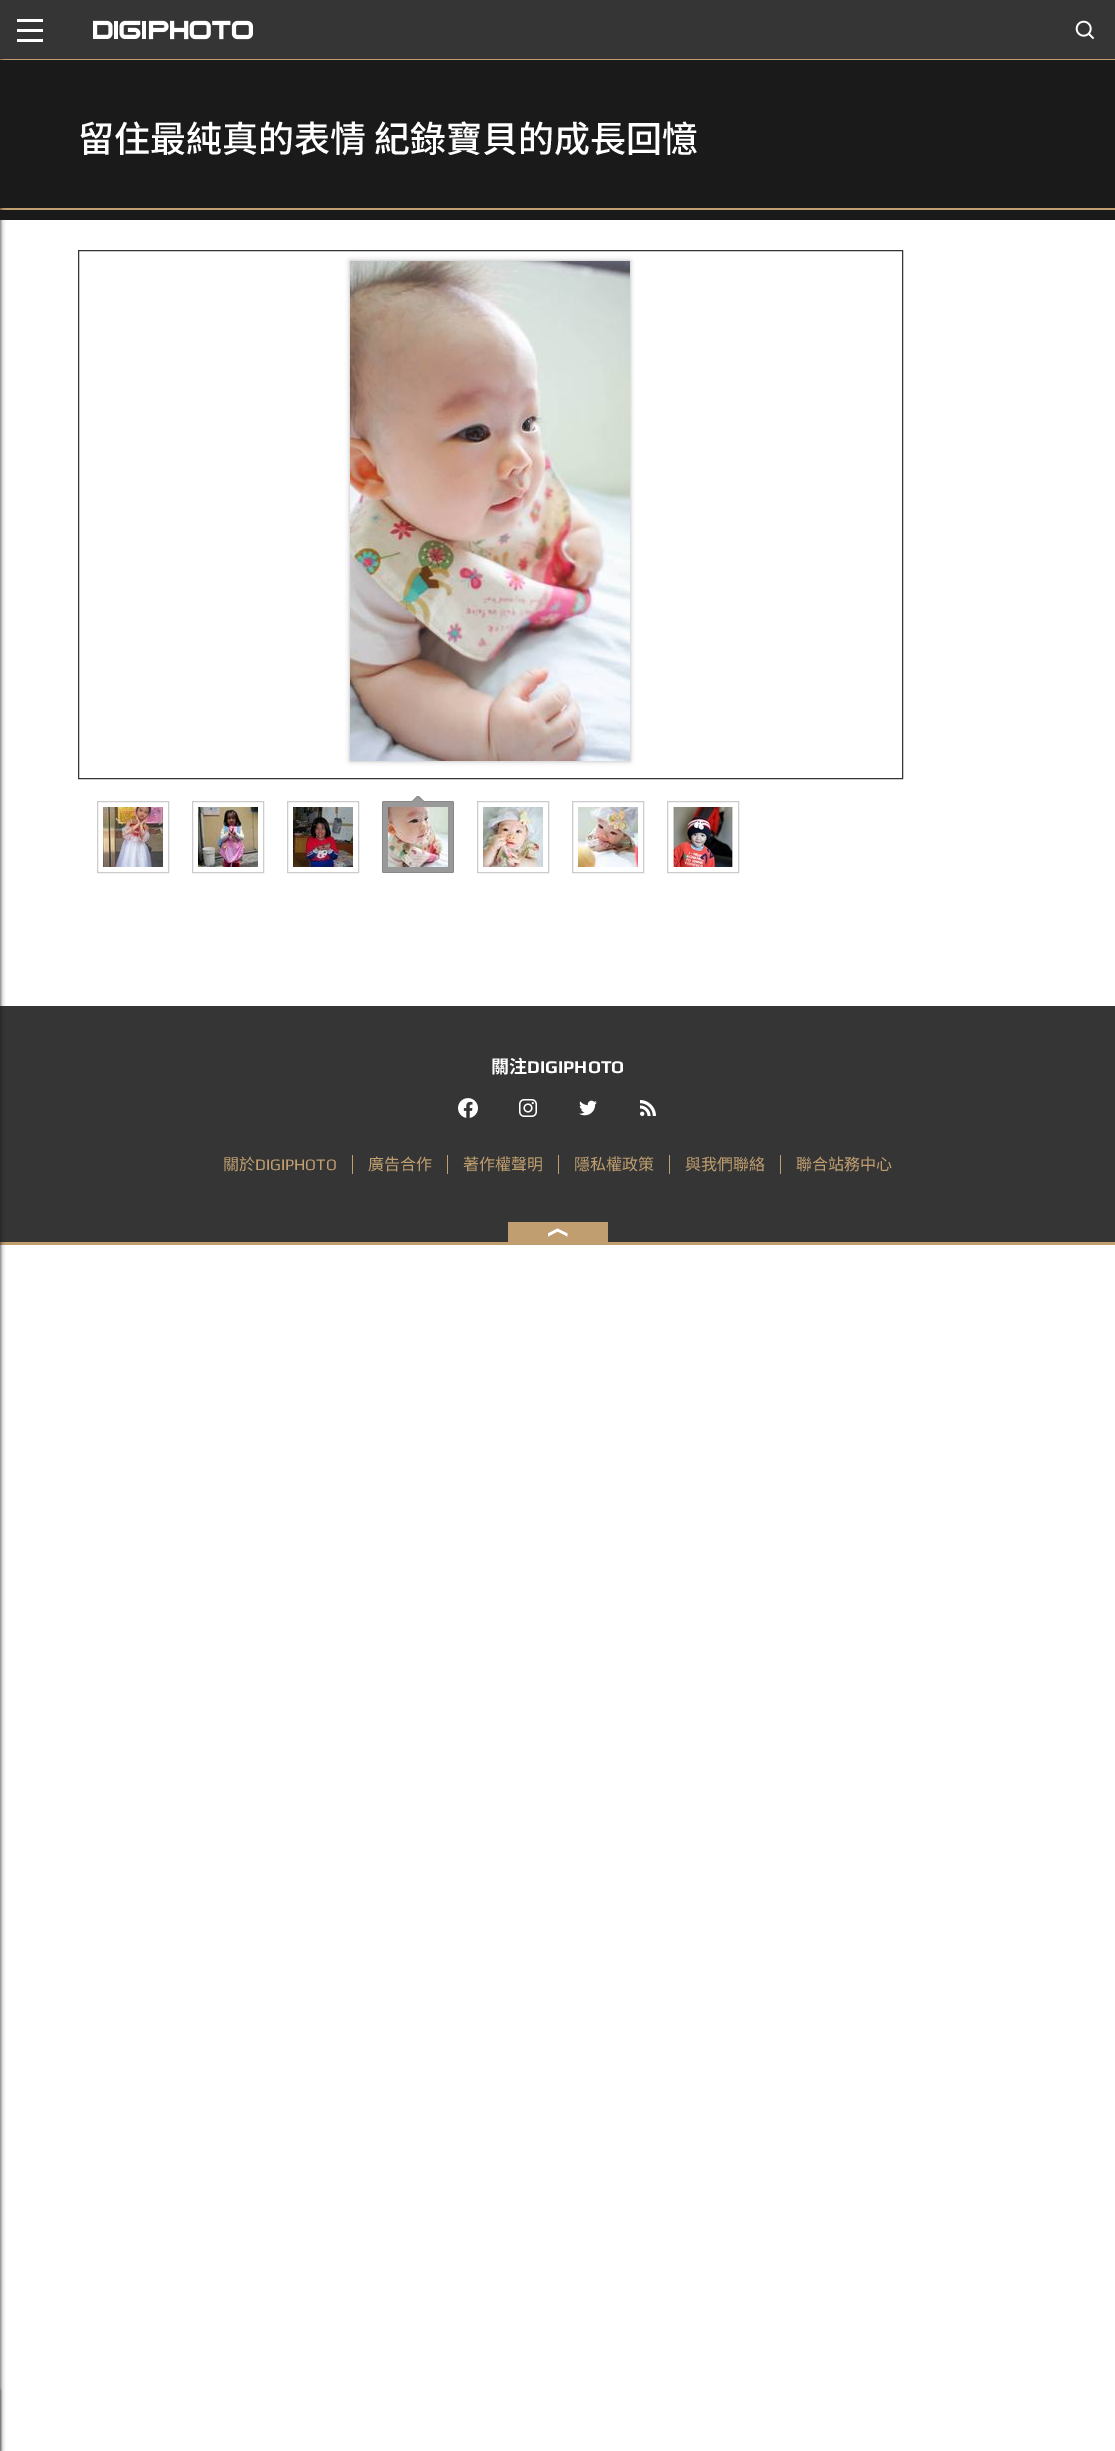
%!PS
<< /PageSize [1115 2451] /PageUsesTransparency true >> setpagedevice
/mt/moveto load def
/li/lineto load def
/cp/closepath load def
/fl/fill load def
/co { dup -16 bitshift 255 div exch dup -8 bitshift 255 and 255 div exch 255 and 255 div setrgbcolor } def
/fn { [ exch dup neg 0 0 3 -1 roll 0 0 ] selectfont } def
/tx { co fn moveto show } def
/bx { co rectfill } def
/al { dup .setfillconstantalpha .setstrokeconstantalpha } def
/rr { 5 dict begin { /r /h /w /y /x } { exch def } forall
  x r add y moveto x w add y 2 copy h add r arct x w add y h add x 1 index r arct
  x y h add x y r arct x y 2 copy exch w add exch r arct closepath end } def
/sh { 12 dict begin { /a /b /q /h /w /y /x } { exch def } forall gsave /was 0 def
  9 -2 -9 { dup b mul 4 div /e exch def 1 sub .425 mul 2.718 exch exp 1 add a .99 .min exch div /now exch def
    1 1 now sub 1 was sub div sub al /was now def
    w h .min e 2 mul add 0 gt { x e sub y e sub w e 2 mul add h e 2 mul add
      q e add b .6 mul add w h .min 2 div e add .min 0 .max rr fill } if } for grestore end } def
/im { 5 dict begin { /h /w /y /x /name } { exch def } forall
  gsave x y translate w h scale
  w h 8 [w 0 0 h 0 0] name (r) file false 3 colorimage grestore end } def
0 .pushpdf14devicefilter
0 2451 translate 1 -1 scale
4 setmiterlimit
0 0 1115 2451 16#FFFFFF bx
0 0 1115 59 16#353535 bx
0 59 1115 1 16#C09E70 bx
17 19 26 3 16#FFFFFF bx
17 29 26 3 16#FFFFFF bx
17 39 26 3 16#FFFFFF bx
(media/1.raw) 93 20 160 20 im
(media/2.raw) 1075 20 20 20 im
0 60 1115 160 16#1A1A1A bx
0 208 1115 2 16#C09E70 bx
0 1006 1115 236 16#353535 bx
0 1242 1115 3 16#C09E70 bx
16#1A1A1A co
-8 60 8 2391 0 2.5 1 sh
16#000000 co
-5 2390 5 61 0 1.5 .45 sh
16#353535 co
78.5 250.5 824 528 rectstroke
16#000000 co
350 261 280 500 0 2.5 .3 sh
(media/3.raw) 350 261 280 500 im
16#CCCCCC co
97.5 801.5 71 71 rectstroke
(media/4.raw) 103 807 60 60 im
192.5 801.5 71 71 rectstroke
(media/5.raw) 198 807 60 60 im
287.5 801.5 71 71 rectstroke
(media/6.raw) 293 807 60 60 im
(media/7.raw) 382 796 72 77 im
(media/8.raw) 388 807 60 60 im
477.5 801.5 71 71 rectstroke
(media/9.raw) 483 807 60 60 im
572.5 801.5 71 71 rectstroke
(media/10.raw) 578 807 60 60 im
667.5 801.5 71 71 rectstroke
(media/11.raw) 673 807 60 60 im
(media/12.raw) 458 1098 20 20 im
(media/13.raw) 519 1099 18 18 im
(media/14.raw) 579 1100 18 16 im
(media/15.raw) 640 1100 16 16 im
352 1155 1 19 16#C09E70 bx
447 1155 1 19 16#C09E70 bx
558 1155 1 19 16#C09E70 bx
669 1155 1 19 16#C09E70 bx
780 1155 1 19 16#C09E70 bx
508 1222 100 20 16#C09E70 bx
16#FFFFFF co
548 1236.5 mt 548 1233.5 li 557.5 1228.5 li 567.5 1233.5 li 567.5 1236.5 li 557.5 1231.5 li cp fl
(留住最純真的表情 紀錄寶貝的成長回憶) 78 152 /NotoSansTC-Medium 36 16#FFFFFF tx
(關注) 491 1073 /NotoSansTC-Bold 18 16#FFFFFF tx
(DIGIPHOTO) 527 1073 /Play-Bold 18 16#FFFFFF tx
(關於) 223 1170 /NotoSansTC-Regular 16 16#C09E70 tx
(DIGIPHOTO) 255 1170 /Play-Regular 16 16#C09E70 tx
(廣告合作) 368 1170 /NotoSansTC-Regular 16 16#C09E70 tx
(著作權聲明) 463 1170 /NotoSansTC-Regular 16 16#C09E70 tx
(隱私權政策) 574 1170 /NotoSansTC-Regular 16 16#C09E70 tx
(與我們聯絡) 685 1170 /NotoSansTC-Regular 16 16#C09E70 tx
(聯合站務中心) 796 1170 /NotoSansTC-Regular 16 16#C09E70 tx
.poppdf14devicefilter showpage
